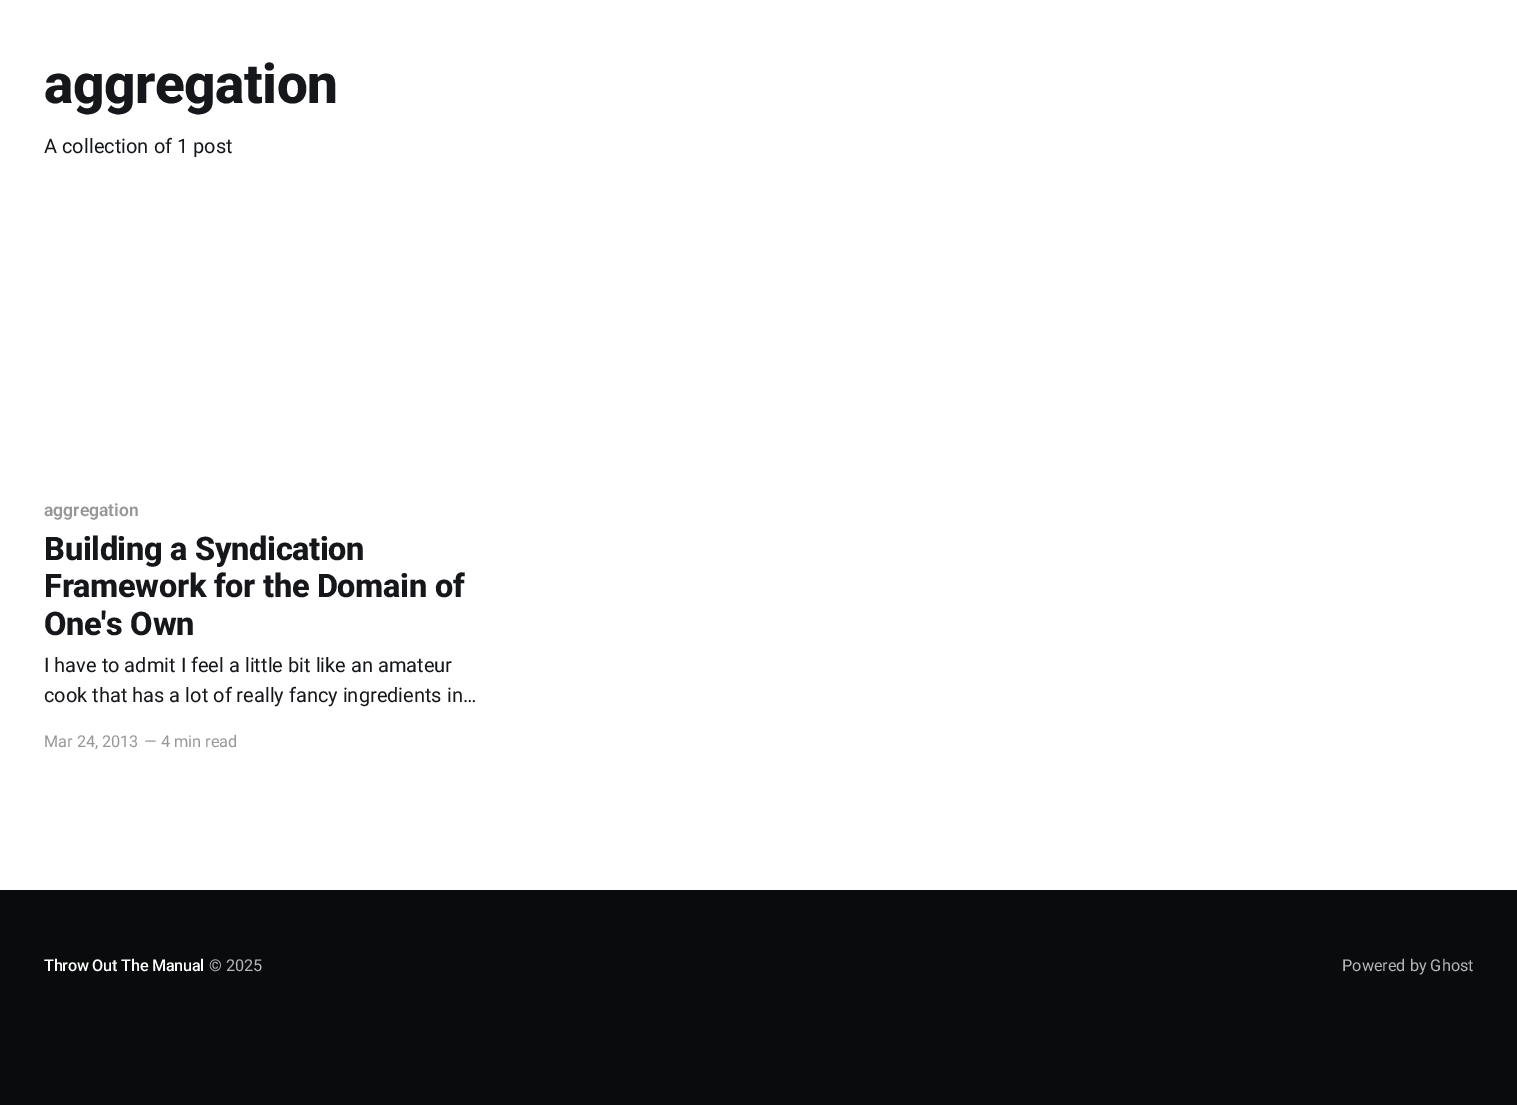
%!PS
<< /PageSize [1517 1105] >> setpagedevice
/mt/moveto load def
/co { dup -16 bitshift 255 div exch dup -8 bitshift 255 and 255 div exch 255 and 255 div setrgbcolor } def
/fn { [ exch dup neg 0 0 3 -1 roll 0 0 ] selectfont } def
/tx { co fn moveto show } def
/bx { co rectfill } def
0 1105 translate 1 -1 scale
4 setmiterlimit
0 0 1517 1105 16#FFFFFF bx
0 890 1517 215 16#0A0B0C bx
/Roboto-ExtraBold 55 fn
16#15171A co
44 103 mt -.5 0 (aggregation) ashow
(A collection of 1 post) 44 153 /Roboto-Regular 20 16#15171A tx
(aggregation) 44 516 /Roboto-SemiBold 17.5 16#979797 tx
/Roboto-ExtraBold 32.5 fn
16#15171A co
44 560 mt -.3 0 (Building a Syndication) ashow
44 597 mt -.3 0 (Framework for the Domain of) ashow
44 635 mt -.3 0 (One's Own) ashow
(I have to admit I feel a little bit like an amateur) 44 672 /Roboto-Regular 20 16#15171A tx
(cook that has a lot of really fancy ingredients in…) 44 702 /Roboto-Regular 20 16#15171A tx
(Mar 24, 2013) 44 747 /Roboto-Regular 16.25 16#979797 tx
(—) 144 747 /Roboto-Regular 16.25 16#979797 tx
(4 min read) 161 747 /Roboto-Regular 16.25 16#979797 tx
/Roboto-Medium 16.25 fn
16#FFFFFF co
44 971 mt -.25 0 (Throw Out The Manual) ashow
(© 2025) 209 971 /Roboto-Regular 16.25 16#B6B6B6 tx
(Powered by Ghost) 1342 971 /Roboto-Regular 16.25 16#B6B6B6 tx
showpage
